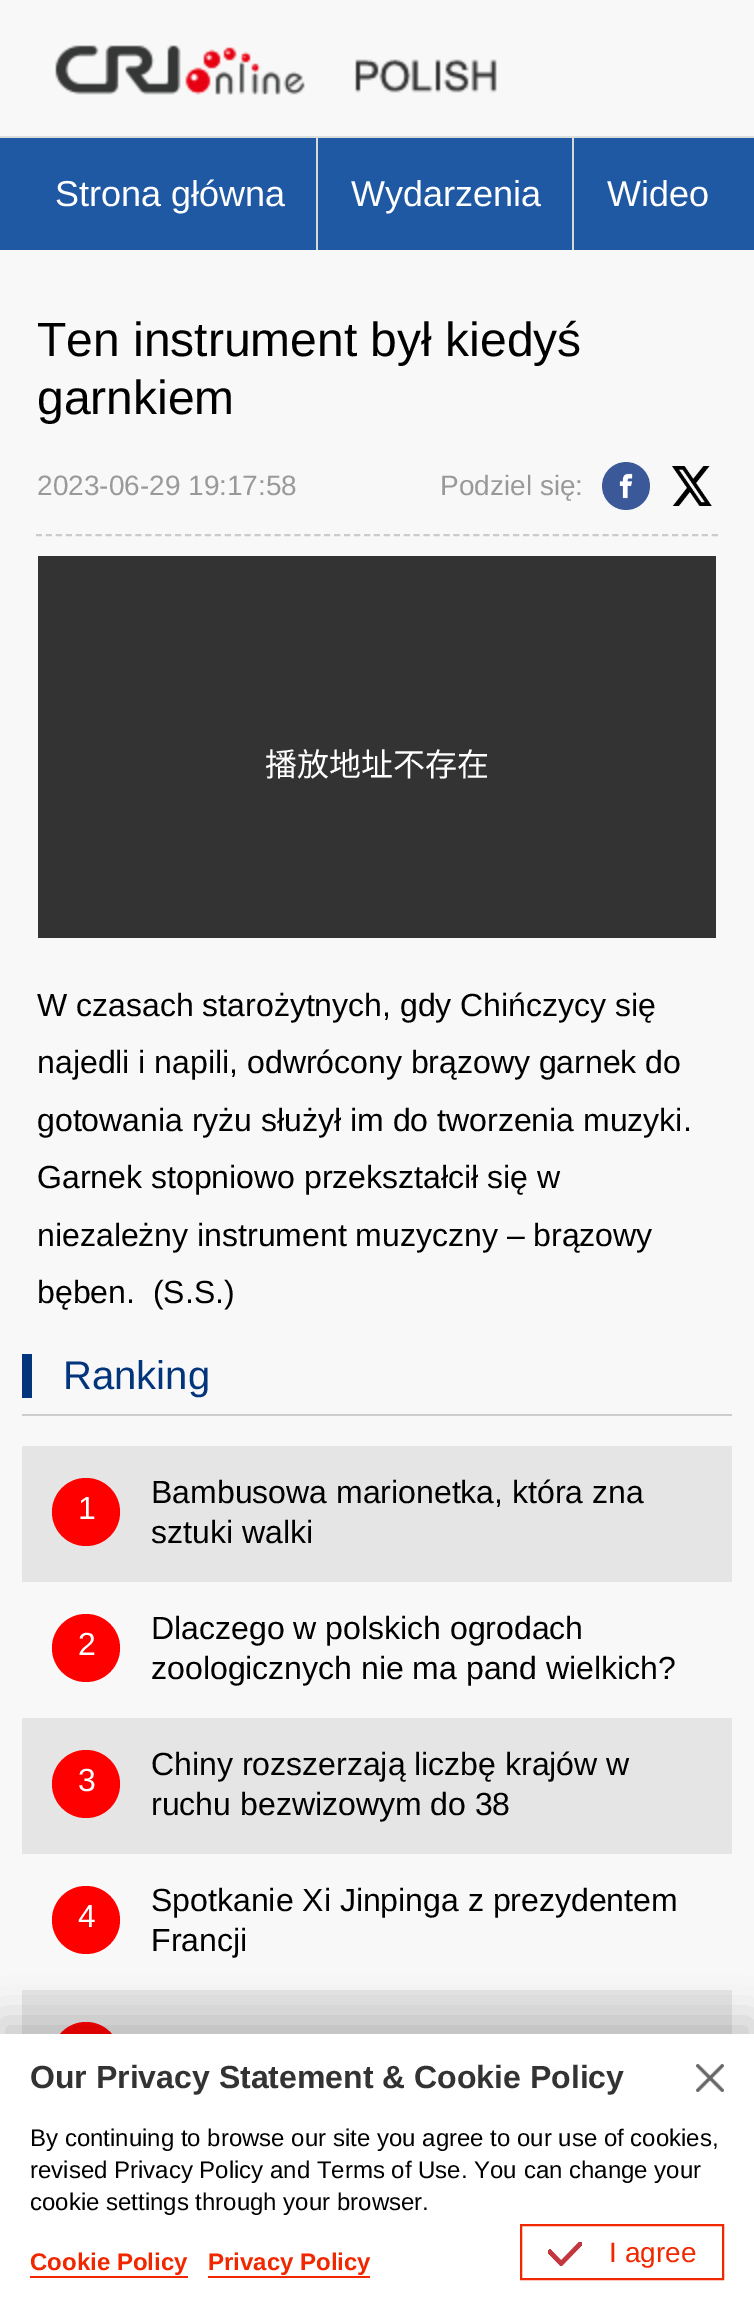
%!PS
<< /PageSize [754 2300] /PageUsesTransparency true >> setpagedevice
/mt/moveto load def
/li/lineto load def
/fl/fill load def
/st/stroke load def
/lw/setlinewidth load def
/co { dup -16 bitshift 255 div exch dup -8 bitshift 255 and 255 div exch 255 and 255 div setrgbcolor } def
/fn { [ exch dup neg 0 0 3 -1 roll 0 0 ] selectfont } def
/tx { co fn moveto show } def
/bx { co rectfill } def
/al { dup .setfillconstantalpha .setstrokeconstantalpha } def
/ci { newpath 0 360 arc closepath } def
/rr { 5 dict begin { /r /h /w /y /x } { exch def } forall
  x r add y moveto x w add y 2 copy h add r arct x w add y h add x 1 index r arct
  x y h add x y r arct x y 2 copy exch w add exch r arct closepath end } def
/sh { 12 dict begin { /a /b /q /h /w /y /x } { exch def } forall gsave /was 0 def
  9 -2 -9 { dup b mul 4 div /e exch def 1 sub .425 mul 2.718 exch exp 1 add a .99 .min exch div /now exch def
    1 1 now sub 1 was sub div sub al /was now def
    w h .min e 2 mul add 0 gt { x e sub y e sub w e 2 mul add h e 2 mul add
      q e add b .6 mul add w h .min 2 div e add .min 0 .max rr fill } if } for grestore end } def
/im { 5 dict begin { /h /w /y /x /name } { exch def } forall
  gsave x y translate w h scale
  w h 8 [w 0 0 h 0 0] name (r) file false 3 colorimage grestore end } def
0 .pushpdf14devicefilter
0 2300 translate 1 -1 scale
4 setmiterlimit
0 0 754 2300 16#F8F8F8 bx
(media/1.raw) 55 45 442 50 im
0 138 754 112 16#2059A3 bx
0 136 754 2 16#DCDDDD bx
316 138 2 112 16#D8D8D8 bx
572 138 2 112 16#D8D8D8 bx
16#CBCBCB co
2 lw
[6 3.94] 0 setdash
36 535 mt 718 535 li st
(media/2.raw) 602 462 48 48 im
(media/3.raw) 672 466 40 40 im
38 556 678 382 16#333333 bx
22 1414 710 2 16#CDCDCD bx
22 1354 10 44 16#03357D bx
22 1446 710 136 16#E5E5E5 bx
16#FF0000 co
86 1512 34 ci fl
86 1648 34 ci fl
22 1718 710 136 16#E5E5E5 bx
16#FF0000 co
86 1784 34 ci fl
86 1920 34 ci fl
22 1990 710 44 16#E5E5E5 bx
16#FF0000 co
86 2056 34 ci fl
16#000000 co
0 2020 754 266 0 20 .19 sh
0 2034 754 266 16#FFFFFF bx
(media/4.raw) 696 2064 28 28 im
30 2276 158 2 16#F12700 bx
208 2276 162 2 16#F12700 bx
[] 0 setdash
521 2225 202 54 rectstroke
(media/5.raw) 548 2242 34 24 im
(Strona główna) 55 206 /LiberationSans-Regular 36 16#FFFFFF tx
(Wydarzenia) 351 206 /LiberationSans-Regular 36 16#FFFFFF tx
(Wideo) 607 206 /LiberationSans-Regular 36 16#FFFFFF tx
(Ten instrument był kiedyś) 37 356 /LiberationSans-Regular 48 16#000000 tx
(garnkiem) 37 414 /LiberationSans-Regular 48 16#000000 tx
(2023-06-29 19:17:58) 37 495 /LiberationSans-Regular 28 16#999999 tx
(Podziel się:) 440 495 /LiberationSans-Regular 28 16#999999 tx
(播放地址不存在) 265 776 /NotoSansCJKSC-Regular 32 16#FFFFFF tx
(W czasach starożytnych, gdy Chińczycy się) 37 1016 /LiberationSans-Regular 32 16#000000 tx
(najedli i napili, odwrócony brązowy garnek do) 37 1073 /LiberationSans-Regular 32 16#000000 tx
(gotowania ryżu służył im do tworzenia muzyki.) 37 1131 /LiberationSans-Regular 32 16#000000 tx
(Garnek stopniowo przekształcił się w) 37 1188 /LiberationSans-Regular 32 16#000000 tx
(niezależny instrument muzyczny – brązowy) 37 1246 /LiberationSans-Regular 32 16#000000 tx
(bęben.  \(S.S.\)) 37 1303 /LiberationSans-Regular 32 16#000000 tx
(Ranking) 63 1389 /LiberationSans-Regular 40 16#03357D tx
(1) 78 1519 /LiberationSans-Regular 32 16#FFFFFF tx
(Bambusowa marionetka, która zna) 151 1503 /LiberationSans-Regular 32 16#000000 tx
(sztuki walki) 151 1543 /LiberationSans-Regular 32 16#000000 tx
(2) 78 1655 /LiberationSans-Regular 32 16#FFFFFF tx
(Dlaczego w polskich ogrodach) 151 1639 /LiberationSans-Regular 32 16#000000 tx
(zoologicznych nie ma pand wielkich?) 151 1679 /LiberationSans-Regular 32 16#000000 tx
(3) 78 1791 /LiberationSans-Regular 32 16#FFFFFF tx
(Chiny rozszerzają liczbę krajów w) 151 1775 /LiberationSans-Regular 32 16#000000 tx
(ruchu bezwizowym do 38) 151 1815 /LiberationSans-Regular 32 16#000000 tx
(4) 78 1927 /LiberationSans-Regular 32 16#FFFFFF tx
(Spotkanie Xi Jinpinga z prezydentem) 151 1911 /LiberationSans-Regular 32 16#000000 tx
(Francji) 151 1951 /LiberationSans-Regular 32 16#000000 tx
(Our Privacy Statement & Cookie Policy) 30 2088 /LiberationSans-Bold 32 16#333333 tx
(By continuing to browse our site you agree to our use of cookies,) 30 2146 /LiberationSans-Regular 24 16#000000 tx
(revised Privacy Policy and Terms of Use. You can change your) 30 2178 /LiberationSans-Regular 24 16#000000 tx
(cookie settings through your browser.) 30 2210 /LiberationSans-Regular 24 16#000000 tx
(Cookie Policy) 30 2270 /LiberationSans-Bold 24 16#F12700 tx
(Privacy Policy) 208 2270 /LiberationSans-Bold 24 16#F12700 tx
(I agree) 609 2262 /LiberationSans-Regular 28 16#F12700 tx
.poppdf14devicefilter showpage
